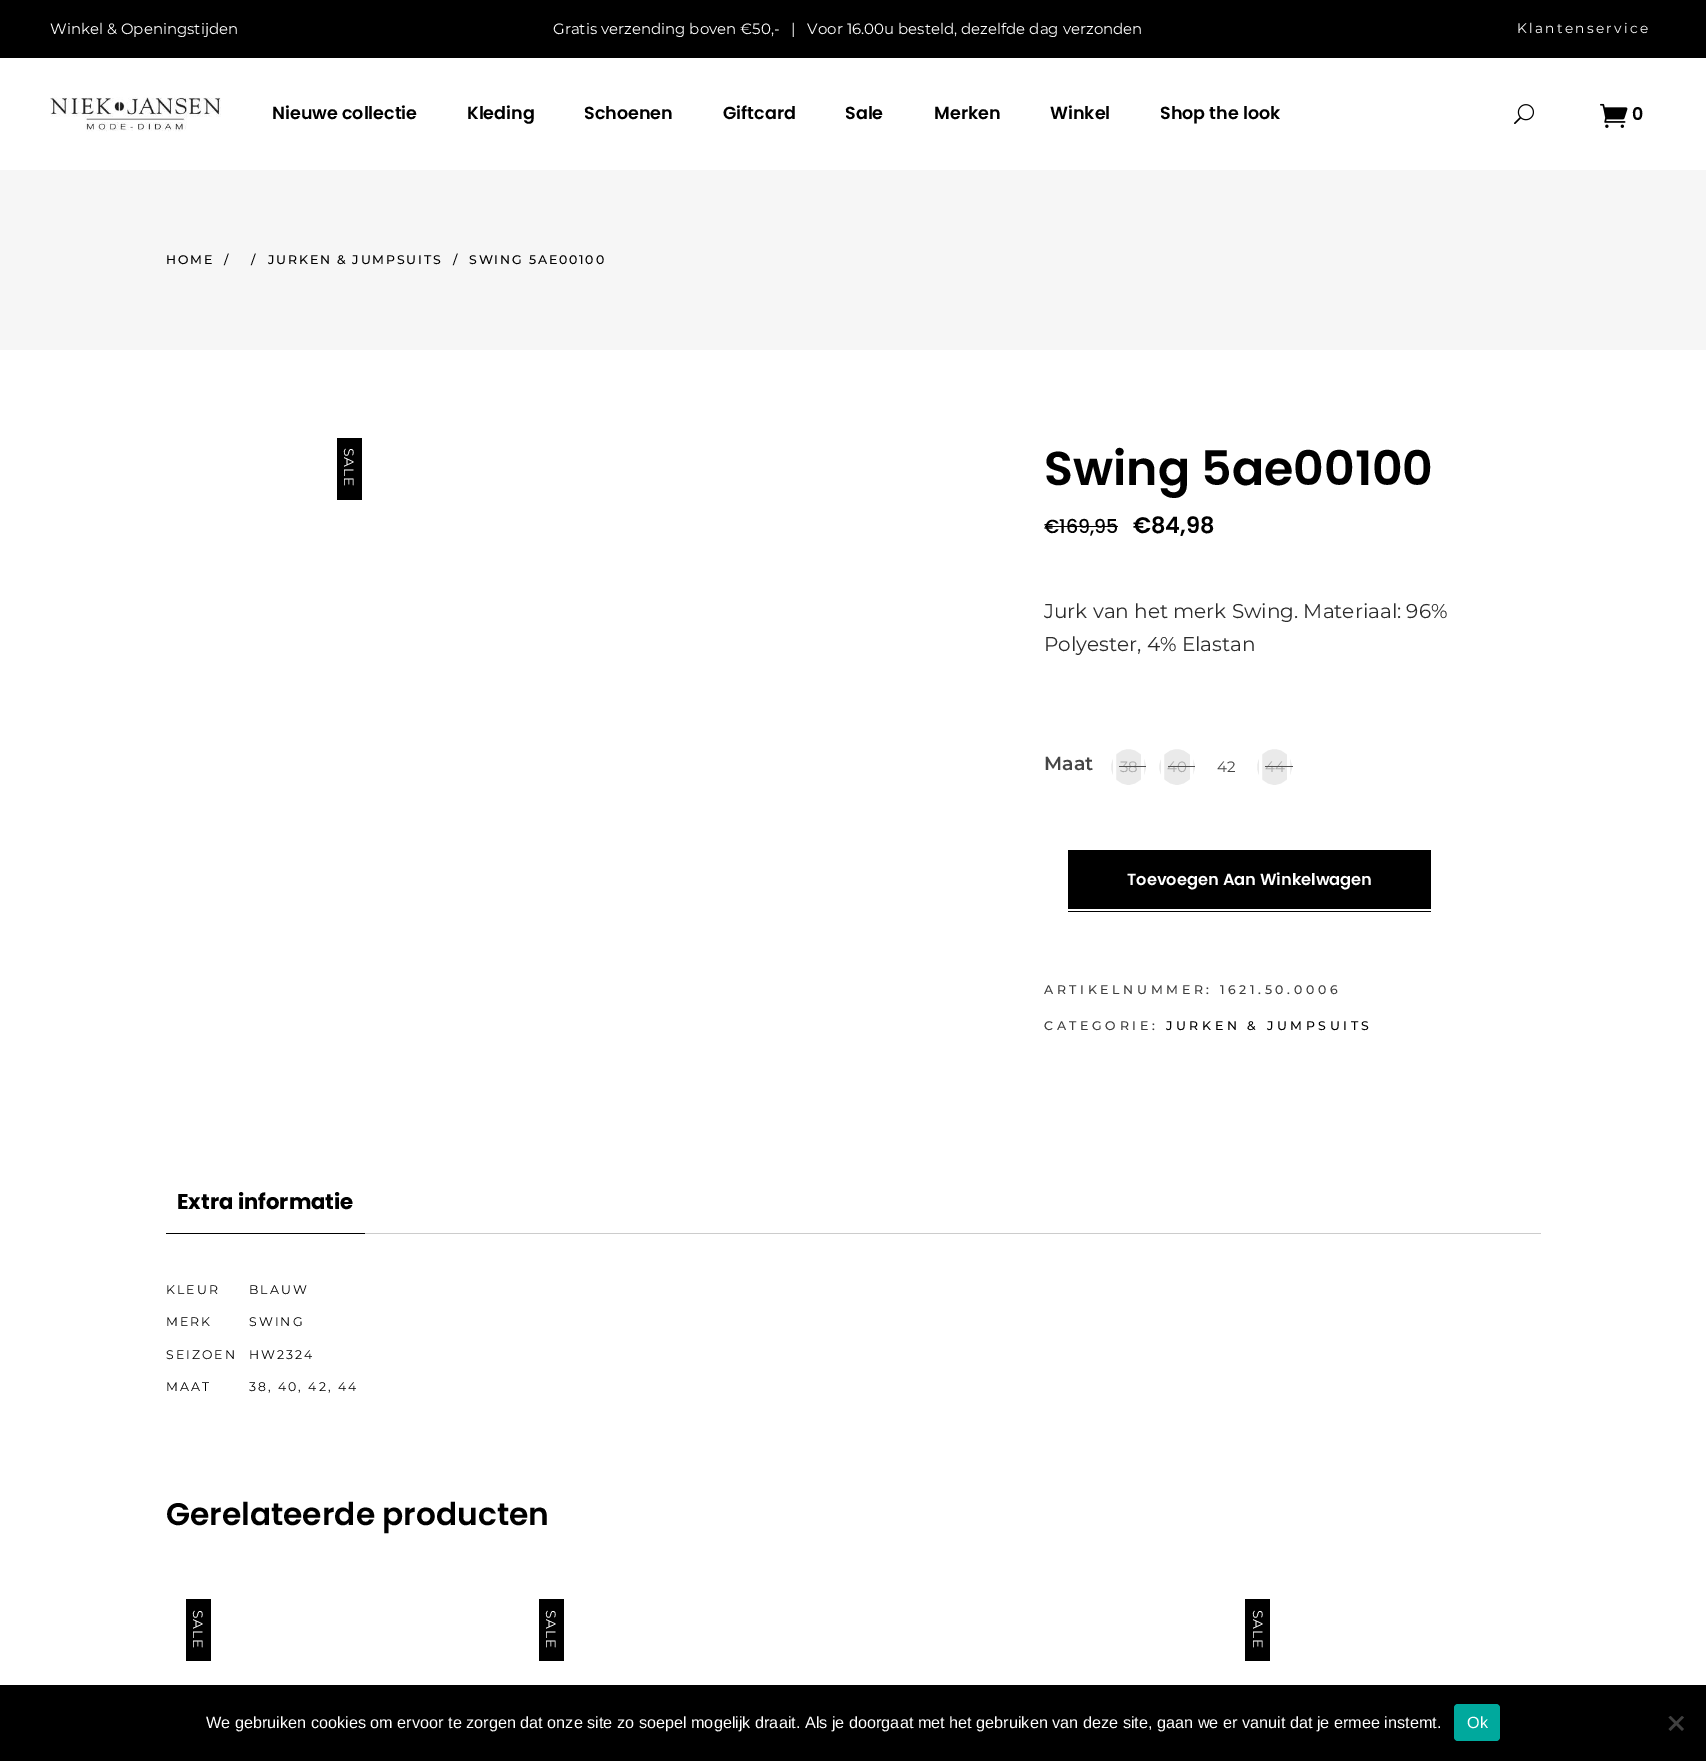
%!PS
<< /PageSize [1706 1761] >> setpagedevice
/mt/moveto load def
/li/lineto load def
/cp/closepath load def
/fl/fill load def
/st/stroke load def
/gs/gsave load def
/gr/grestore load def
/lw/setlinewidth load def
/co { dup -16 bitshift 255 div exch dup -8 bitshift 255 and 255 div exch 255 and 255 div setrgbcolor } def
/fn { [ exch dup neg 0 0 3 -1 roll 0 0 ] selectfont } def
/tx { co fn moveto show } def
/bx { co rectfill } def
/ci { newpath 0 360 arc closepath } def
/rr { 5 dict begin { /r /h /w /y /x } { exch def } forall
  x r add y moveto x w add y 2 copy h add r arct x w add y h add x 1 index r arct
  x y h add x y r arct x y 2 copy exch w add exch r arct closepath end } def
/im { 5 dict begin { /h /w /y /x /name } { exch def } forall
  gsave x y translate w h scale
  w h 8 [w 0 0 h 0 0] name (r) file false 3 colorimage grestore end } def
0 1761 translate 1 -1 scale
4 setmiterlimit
0 0 1706 1761 16#FFFFFF bx
0 0 1706 58 16#000000 bx
(media/1.raw) 50 97 171 35 im
(media/2.raw) 1514 104 20 20 im
(media/3.raw) 1600 103 28 25 im
0 170 1706 180 16#F6F6F6 bx
337 438 25 62 16#000000 bx
1045 526 73 1 16#000000 bx
16#EAEAEA co
1109.5 747.5 38 39 19 rr gs fl gr
16#FFFFFF co
3 lw
st
1114.5 736.5 28 62 14 rr st
16#EAEAEA co
1177 767 19.5 ci gs fl gr
16#FFFFFF co
st
1162.5 736.5 29 62 14.5 rr st
16#EAEAEA co
1255.5 747.5 38 39 19 rr gs fl gr
16#FFFFFF co
st
1260.5 736.5 28 62 14 rr st
1068 850 363 59 16#000000 bx
1068 911 363 1 16#000000 bx
166 1233 199 1 16#000000 bx
365 1233 1176 1 16#CCCCCC bx
186 1599 25 62 16#000000 bx
539 1599 25 62 16#000000 bx
1245 1599 25 62 16#000000 bx
0 1685 1706 76 16#000000 bx
16#00A99D co
1454 1704 46 37 4 rr fl
16#404040 co
1682 1716 mt 1684 1717.5 li 1670.5 1731 li 1668.5 1729 li cp fl
1668.5 1717.5 mt 1670.5 1716 li 1684 1729 li 1682 1731 li cp fl
(Winkel & Openingstijden) 50 34 /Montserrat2-Thin 15 16#FFFFFF tx
(Gratis verzending boven €50,-   |   Voor 16.00u besteld, dezelfde dag verzonden) 553 34 /Montserrat2-Thin 15 16#FFFFFF tx
/Montserrat2-Thin 13.75 fn
1517 33 mt 2.25 0 (Klantenservice) ashow
(Nieuwe collectie) 272 119 /Poppins-SemiBold 17.5 16#000000 tx
(Kleding) 467 119 /Poppins-SemiBold 17.5 16#000000 tx
(Schoenen) 584 119 /Poppins-SemiBold 17.5 16#000000 tx
(Giftcard) 723 119 /Poppins-SemiBold 17.5 16#000000 tx
(Sale) 845 119 /Poppins-SemiBold 17.5 16#000000 tx
(Merken) 934 119 /Poppins-SemiBold 17.5 16#000000 tx
(Winkel) 1050 119 /Poppins-SemiBold 17.5 16#000000 tx
(Shop the look) 1160 119 /Poppins-SemiBold 17.5 16#000000 tx
(0) 1632 120 /Poppins-SemiBold 17.5 16#000000 tx
/Montserrat-Thin 12.5 fn
166 264 mt 1.8 0 (HOME) ashow
224 264 mt 1.8 0 (/) ashow
251 264 mt 1.8 0 (/) ashow
268 264 mt 1.8 0 (JURKEN & JUMPSUITS) ashow
453 264 mt 1.8 0 (/) ashow
469 264 mt 1.8 0 (SWING 5AE00100) ashow
/Montserrat2-Thin 13.75 fn
16#FFFFFF co
gs 344 448 translate 90 rotate 0 0 mt 1 0 (SALE) ashow gr
(Swing 5ae00100) 1044 485 /Poppins-SemiBold 47.5 16#000000 tx
(€169,95) 1044 533 /Poppins-Medium 19 16#000000 tx
(€84,98) 1133 533 /Poppins-SemiBold 22.5 16#000000 tx
(Jurk van het merk Swing. Materiaal: 96%) 1044 618 /Montserrat2-Thin 20 16#2D2D2D tx
(Polyester, 4% Elastan) 1044 651 /Montserrat2-Thin 20 16#2D2D2D tx
(Maat) 1044 770 /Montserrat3-Thin 19 16#464646 tx
(38) 1120 772 /Montserrat2-Thin 15 16#AAAAAA tx
1119 766 27 1 16#505050 bx
(40) 1167 772 /Montserrat2-Thin 15 16#AAAAAA tx
1168 766 27 1 16#505050 bx
(42) 1217 772 /Montserrat2-Thin 15 16#464646 tx
(44) 1265 772 /Montserrat2-Thin 15 16#AAAAAA tx
1265 766 28 1 16#505050 bx
(Toevoegen Aan Winkelwagen) 1127 885 /Poppins-SemiBold 16.25 16#FFFFFF tx
/Montserrat-Thin 12.5 fn
16#3D3D3D co
1044 994 mt 3.6 0 (ARTIKELNUMMER: 1621.50.0006) ashow
1044 1030 mt 3.6 0 (CATEGORIE:) ashow
16#000000 co
1166 1030 mt 3.6 0 (JURKEN & JUMPSUITS) ashow
(Extra informatie) 177 1209 /Poppins-Bold 21.25 16#000000 tx
/Montserrat2-Thin 12.5 fn
166 1294 mt 2 0 (KLEUR) ashow
249 1294 mt 2 0 (BLAUW) ashow
166 1326 mt 2 0 (MERK) ashow
249 1326 mt 2 0 (SWING) ashow
166 1359 mt 2 0 (SEIZOEN) ashow
249 1359 mt 2 0 (HW2324) ashow
166 1391 mt 2 0 (MAAT) ashow
249 1391 mt 2 0 (38, 40, 42, 44) ashow
(Gerelateerde producten) 166 1525 /Poppins-SemiBold 31.25 16#000000 tx
/Montserrat2-Thin 13.75 fn
16#FFFFFF co
gs 193 1610 translate 90 rotate 0 0 mt 1 0 (SALE) ashow gr
gs 546 1610 translate 90 rotate 0 0 mt 1 0 (SALE) ashow gr
gs 1253 1610 translate 90 rotate 0 0 mt 1 0 (SALE) ashow gr
(We gebruiken cookies om ervoor te zorgen dat onze site zo soepel mogelijk draait. Als je doorgaat met het gebruiken van deze site, gaan we er vanuit dat je ermee instemt.) 206 1728 /LiberationSans-Regular 16.25 16#FFFFFF tx
(Ok) 1467 1728 /LiberationSans-Regular 16.25 16#FFFFFF tx
showpage
